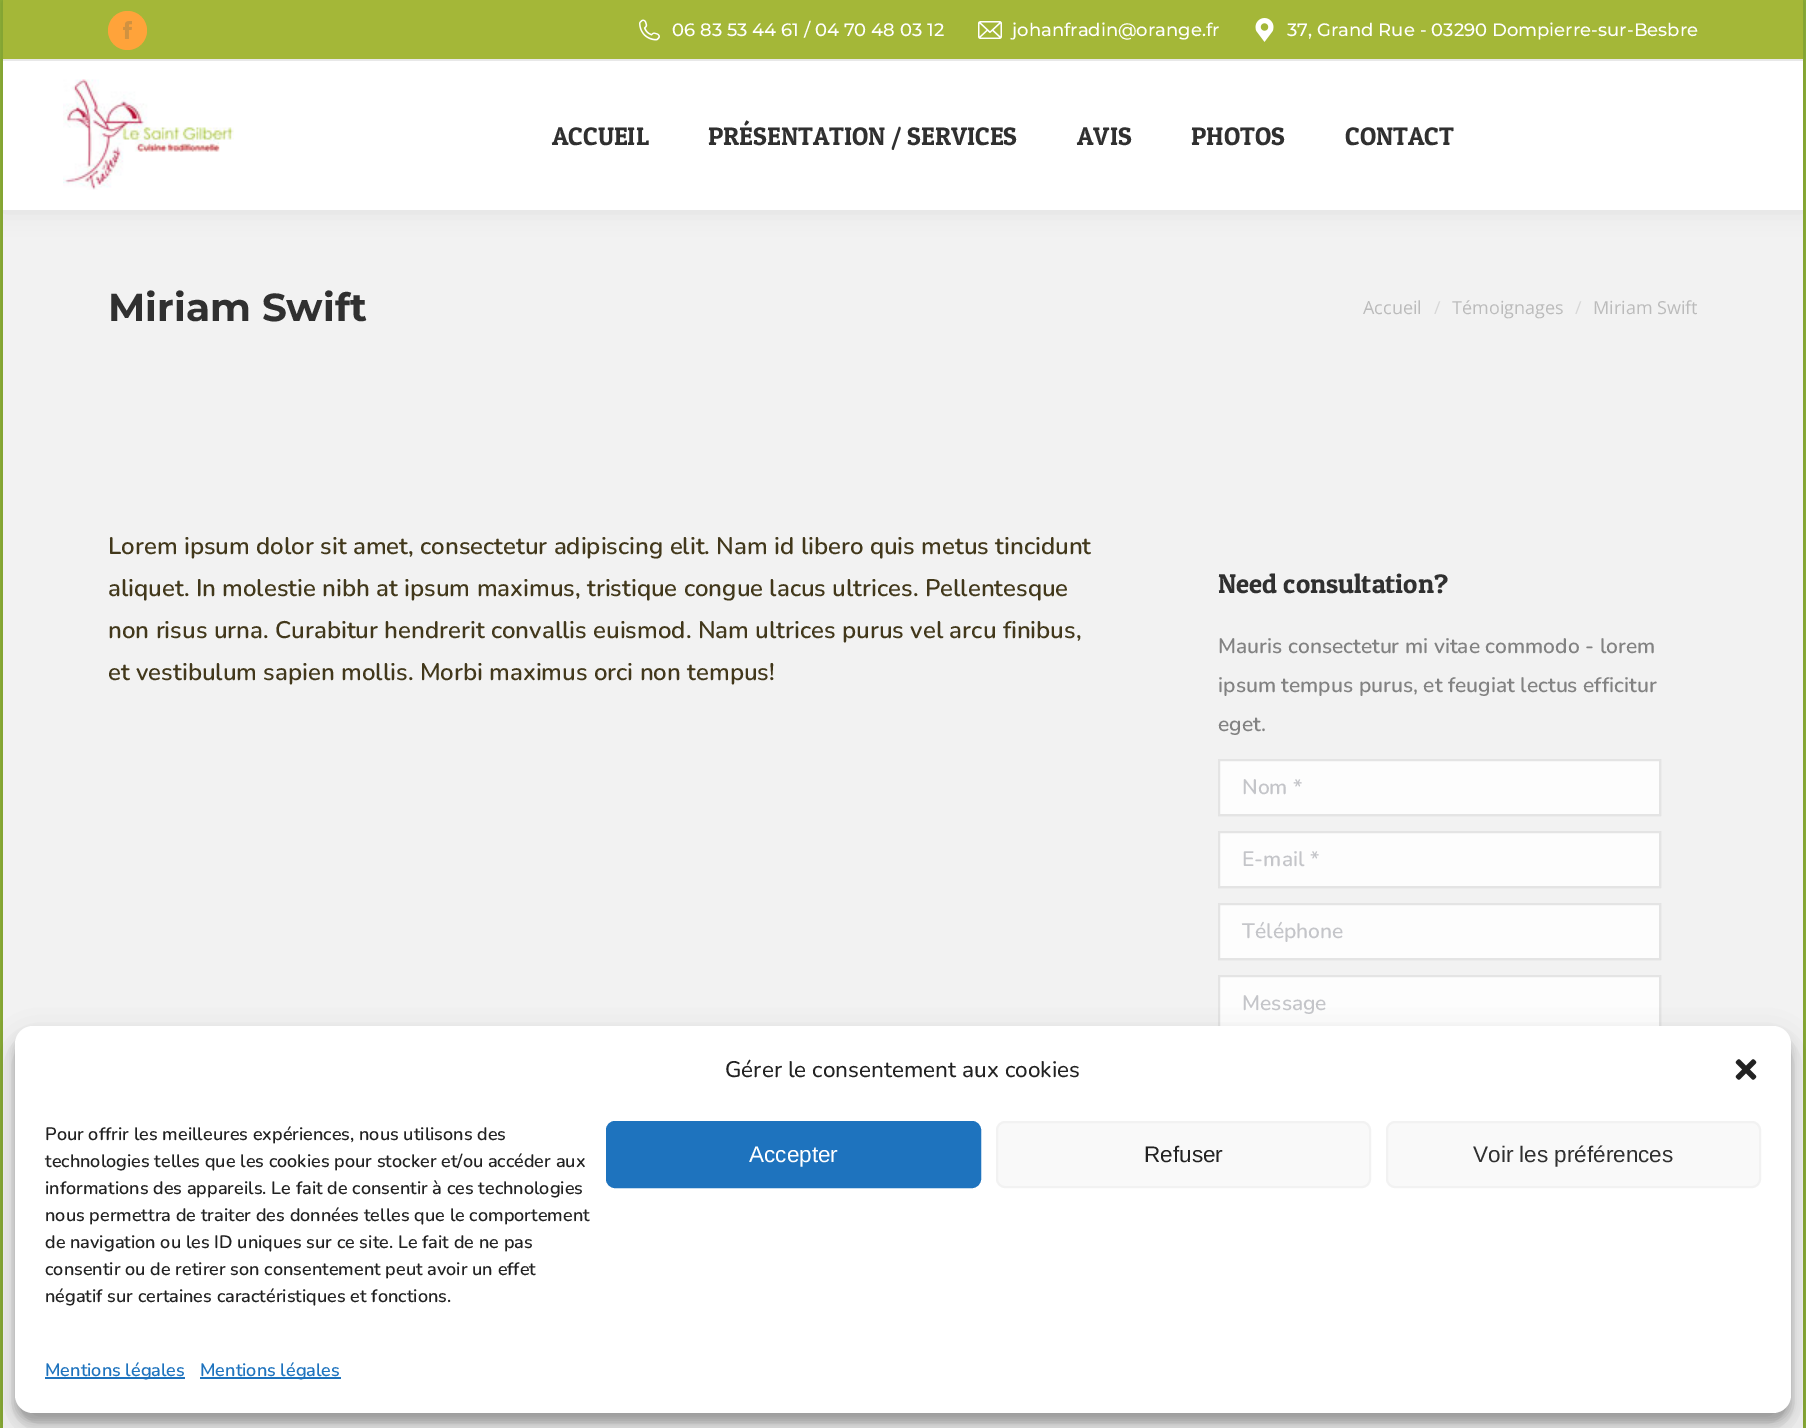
%!PS
<< /PageSize [1806 1428] /PageUsesTransparency true >> setpagedevice
/fl/fill load def
/st/stroke load def
/gs/gsave load def
/gr/grestore load def
/lw/setlinewidth load def
/co { dup -16 bitshift 255 div exch dup -8 bitshift 255 and 255 div exch 255 and 255 div setrgbcolor } def
/fn { [ exch dup neg 0 0 3 -1 roll 0 0 ] selectfont } def
/tx { co fn moveto show } def
/bx { co rectfill } def
/al { dup .setfillconstantalpha .setstrokeconstantalpha } def
/ci { newpath 0 360 arc closepath } def
/rr { 5 dict begin { /r /h /w /y /x } { exch def } forall
  x r add y moveto x w add y 2 copy h add r arct x w add y h add x 1 index r arct
  x y h add x y r arct x y 2 copy exch w add exch r arct closepath end } def
/sh { 12 dict begin { /a /b /q /h /w /y /x } { exch def } forall gsave /was 0 def
  9 -2 -9 { dup b mul 4 div /e exch def 1 sub .425 mul 2.718 exch exp 1 add a .99 .min exch div /now exch def
    1 1 now sub 1 was sub div sub al /was now def
    w h .min e 2 mul add 0 gt { x e sub y e sub w e 2 mul add h e 2 mul add
      q e add b .6 mul add w h .min 2 div e add .min 0 .max rr fill } if } for grestore end } def
/im { 5 dict begin { /h /w /y /x /name } { exch def } forall
  gsave x y translate w h scale
  w h 8 [w 0 0 h 0 0] name (r) file false 3 colorimage grestore end } def
0 .pushpdf14devicefilter
0 1428 translate 1 -1 scale
4 setmiterlimit
0 0 1806 1428 16#8FB237 bx
16#000000 co
3 0 1800 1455 0 9 .15 sh
3 210 1800 1218 16#F2F2F2 bx
gs
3 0 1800 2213 rectclip
16#000000 co
2 -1 1803 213 0 11 .07 sh
gr
3 61 1800 149 16#FFFFFF bx
3 0 1800 59 16#A4B738 bx
16#FFA33A co
127.5 30.5 19.5 ci fl
(media/1.raw) 123 21 9 18 im
(media/2.raw) 639 19 21 22 im
(media/3.raw) 978 21 24 18 im
(media/4.raw) 1255 18 19 24 im
3 59 1800 2 16#E8E8E8 bx
(media/5.raw) 63 79 171 111 im
16#FDFDFD co
1218 759 443 57 1.5 rr fl
0.12 al
16#333333 co
2 lw
1219 760 441 55 rectstroke
1 al
16#FDFDFD co
1218 831 443 57 1.5 rr fl
0.12 al
16#333333 co
1219 832 441 55 rectstroke
1 al
16#FDFDFD co
1218 903 443 57 1.5 rr fl
0.12 al
16#333333 co
1219 904 441 55 rectstroke
1 al
16#FDFDFD co
1218 975 443 252 1.5 rr fl
0.12 al
16#333333 co
1219 976 441 250 rectstroke
1 al
16#000000 co
15 1035 1776 387 18 4.5 .23 sh
15 1041 1776 387 18 15 .19 sh
16#FFFFFF co
15 1026 1776 387 18 rr fl
(media/6.raw) 1735 1059 22 21 im
16#1E73BE co
607 1122 373 65 8 rr gs fl gr
st
16#F9F9F9 co
997 1122 373 65 8 rr gs fl gr
16#F2F2F2 co
st
16#F9F9F9 co
1387 1122 373 65 8 rr gs fl gr
16#F2F2F2 co
st
45 1377 140 2 16#1E73BE bx
200 1377 141 2 16#1E73BE bx
(06 83 53 44 61 / 04 70 48 03 12) 672 36 /Montserrat-Medium 18 16#FFFFFF tx
(johanfradin@orange.fr) 1012 36 /Montserrat-Medium 18 16#FFFFFF tx
(37, Grand Rue - 03290 Dompierre-sur-Besbre) 1287 36 /Montserrat-Medium 18 16#FFFFFF tx
(ACCUEIL) 552 145 /PatuaOne-Regular 25.5 16#303030 tx
(PRÉSENTATION / SERVICES) 708 145 /PatuaOne-Regular 25.5 16#303030 tx
(AVIS) 1077 145 /PatuaOne-Regular 25.5 16#303030 tx
(PHOTOS) 1191 145 /PatuaOne-Regular 25.5 16#303030 tx
(CONTACT) 1345 145 /PatuaOne-Regular 25.5 16#303030 tx
(Miriam Swift) 108 321 /Montserrat-Bold 39 16#303030 tx
(Accueil) 1363 314 /OpenSans-Regular 18 16#BBBBBB tx
(/) 1434 314 /OpenSans-Regular 18 16#D7D7D7 tx
(Témoignages) 1452 314 /OpenSans-Regular 18 16#BBBBBB tx
(/) 1575 314 /OpenSans-Regular 18 16#D7D7D7 tx
(Miriam Swift) 1593 314 /OpenSans-Regular 18 16#BBBBBB tx
(Lorem ipsum dolor sit amet, consectetur adipiscing elit. Nam id libero quis metus tincidunt) 108 554 /Nunito-SemiBold 24 16#42381B tx
(aliquet. In molestie nibh at ipsum maximus, tristique congue lacus ultrices. Pellentesque) 108 596 /Nunito-SemiBold 24 16#42381B tx
(non risus urna. Curabitur hendrerit convallis euismod. Nam ultrices purus vel arcu finibus,) 108 638 /Nunito-SemiBold 24 16#42381B tx
(et vestibulum sapien mollis. Morbi maximus orci non tempus!) 108 680 /Nunito-SemiBold 24 16#42381B tx
(Need consultation?) 1218 593 /PatuaOne-Regular 27 16#303030 tx
(Mauris consectetur mi vitae commodo - lorem) 1218 653 /Nunito-SemiBold 21 16#828282 tx
(ipsum tempus purus, et feugiat lectus efficitur) 1218 692 /Nunito-SemiBold 21 16#828282 tx
(eget.) 1218 731 /Nunito-SemiBold 21 16#828282 tx
(Nom *) 1242 794 /Nunito-SemiBold 21 16#C4C5C9 tx
(E-mail *) 1242 866 /Nunito-SemiBold 21 16#C4C5C9 tx
(Téléphone) 1242 938 /Nunito-SemiBold 21 16#C4C5C9 tx
(Message) 1242 1010 /Nunito-SemiBold 21 16#C4C5C9 tx
(Gérer le consentement aux cookies) 725 1077 /Nunito-Medium 22.5 16#222222 tx
(Pour offrir les meilleures expériences, nous utilisons des) 45 1140 /Nunito-SemiBold 18 16#222222 tx
(technologies telles que les cookies pour stocker et/ou accéder aux) 45 1167 /Nunito-SemiBold 18 16#222222 tx
(informations des appareils. Le fait de consentir à ces technologies) 45 1194 /Nunito-SemiBold 18 16#222222 tx
(nous permettra de traiter des données telles que le comportement) 45 1221 /Nunito-SemiBold 18 16#222222 tx
(de navigation ou les ID uniques sur ce site. Le fait de ne pas) 45 1248 /Nunito-SemiBold 18 16#222222 tx
(consentir ou de retirer son consentement peut avoir un effet) 45 1275 /Nunito-SemiBold 18 16#222222 tx
(négatif sur certaines caractéristiques et fonctions.) 45 1302 /Nunito-SemiBold 18 16#222222 tx
(Accepter) 749 1162 /LiberationSans-Regular 22.5 16#FFFFFF tx
(Refuser) 1144 1162 /LiberationSans-Regular 22.5 16#222222 tx
(Voir les préférences) 1473 1162 /LiberationSans-Regular 22.5 16#303030 tx
(Mentions légales) 45 1376 /Nunito-SemiBold 18 16#1E73BE tx
(Mentions légales) 200 1376 /Nunito-SemiBold 18 16#1E73BE tx
.poppdf14devicefilter showpage
